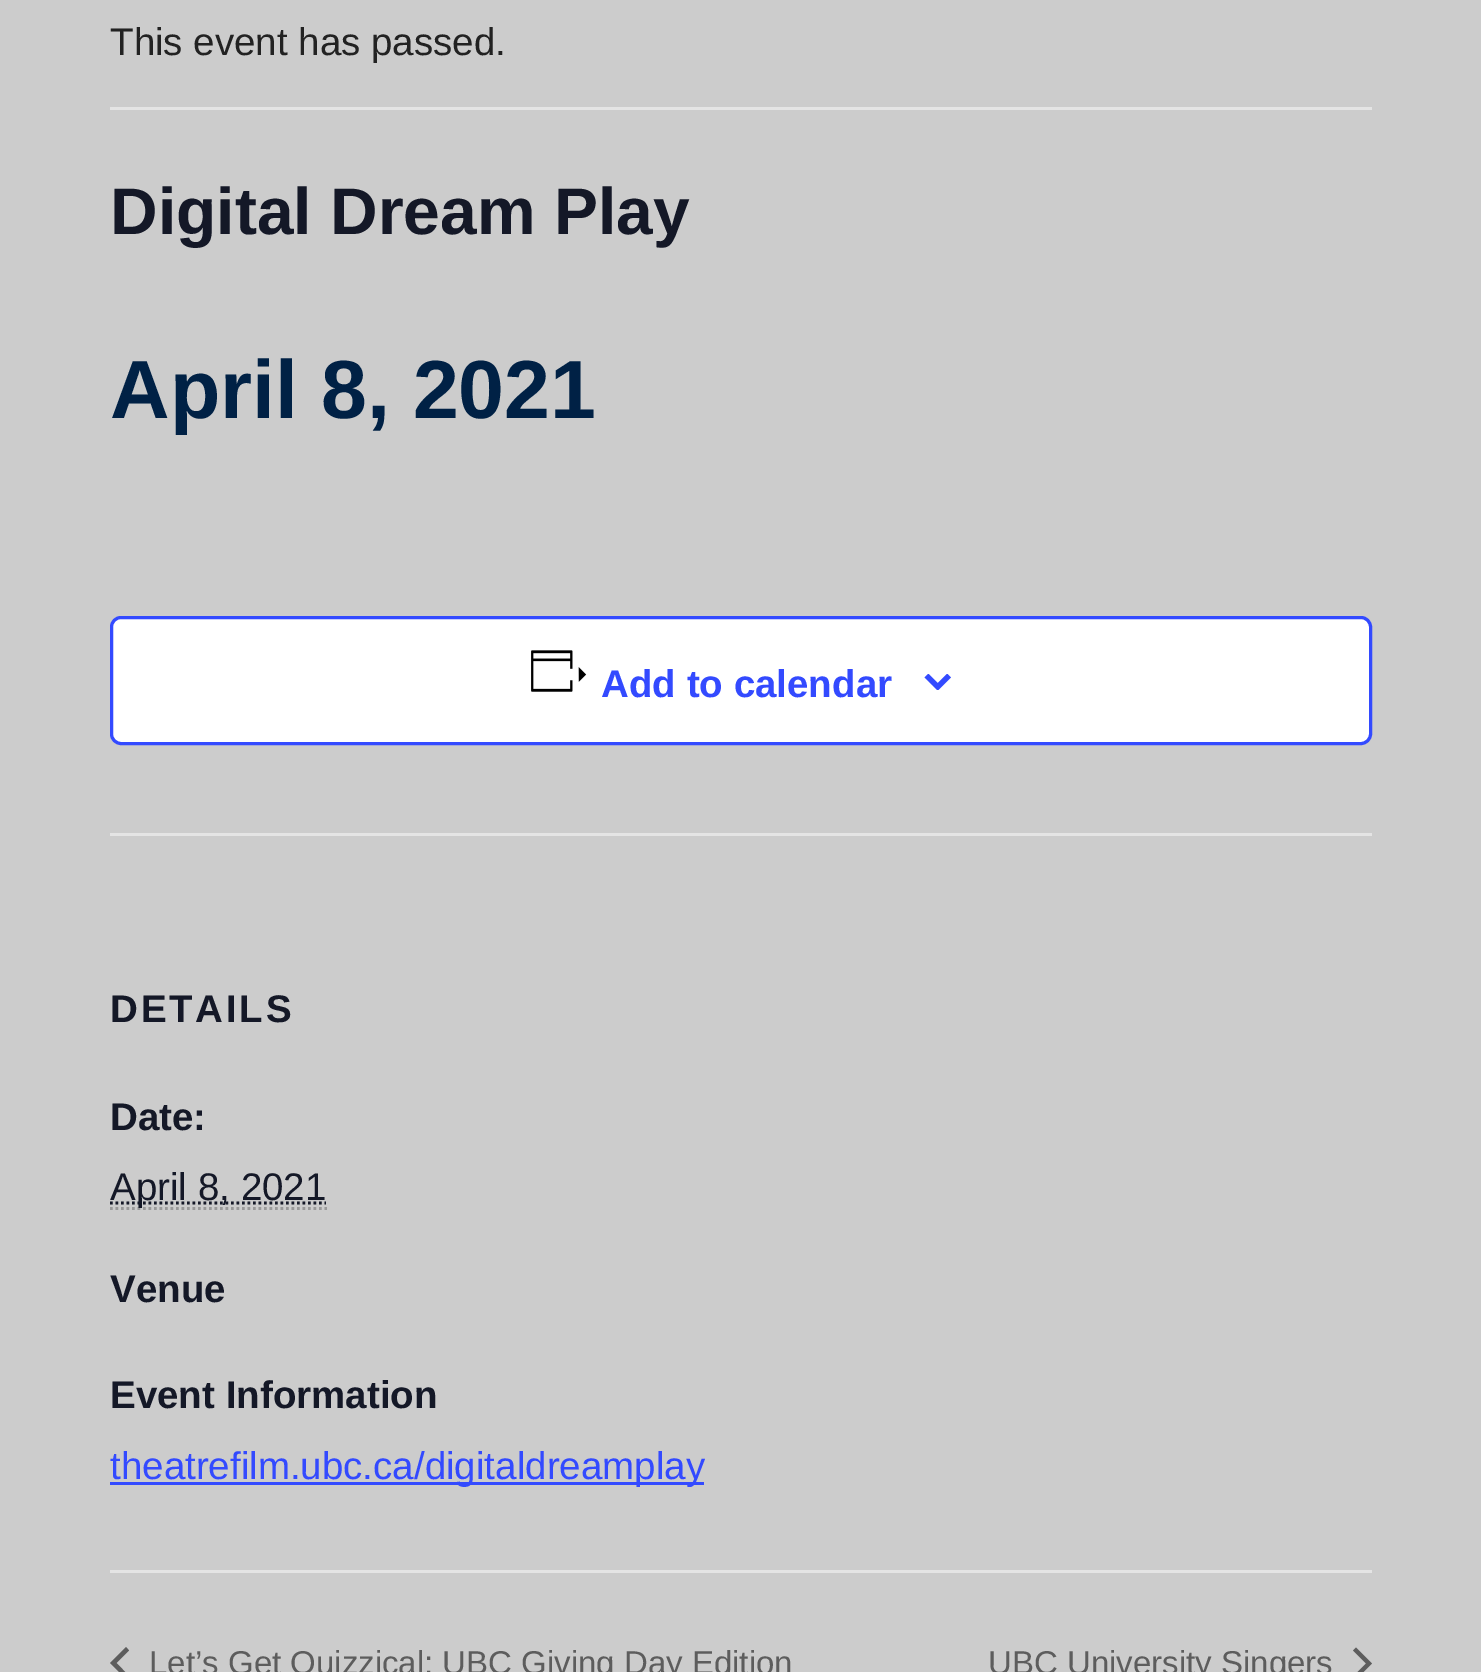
%!PS
<< /PageSize [1481 1672] >> setpagedevice
/mt/moveto load def
/li/lineto load def
/cp/closepath load def
/fl/fill load def
/st/stroke load def
/gs/gsave load def
/gr/grestore load def
/lw/setlinewidth load def
/co { dup -16 bitshift 255 div exch dup -8 bitshift 255 and 255 div exch 255 and 255 div setrgbcolor } def
/fn { [ exch dup neg 0 0 3 -1 roll 0 0 ] selectfont } def
/tx { co fn moveto show } def
/bx { co rectfill } def
/rr { 5 dict begin { /r /h /w /y /x } { exch def } forall
  x r add y moveto x w add y 2 copy h add r arct x w add y h add x 1 index r arct
  x y h add x y r arct x y 2 copy exch w add exch r arct closepath end } def
/im { 5 dict begin { /h /w /y /x /name } { exch def } forall
  gsave x y translate w h scale
  w h 8 [w 0 0 h 0 0] name (r) file false 3 colorimage grestore end } def
0 1672 translate 1 -1 scale
4 setmiterlimit
0 0 1481 1672 16#CCCCCC bx
110 107 1262 3 16#E4E4E4 bx
16#FFFFFF co
111.5 617.5 1259 126 9.5 rr gs fl gr
16#334AFF co
3 lw
st
(media/1.raw) 531 650 56 42 im
(media/2.raw) 924 674 27 16 im
110 833 1262 3 16#E4E4E4 bx
16#999999 co
2.8 lw
[2.75 2.75] 0 setdash
110 1208.5 mt 327 1208.5 li st
16#141827 co
110 1203 mt 326 1203 li st
110 1482 594 3 16#334AFF bx
110 1570 1262 3 16#E4E4E4 bx
16#5D5D5D co
129 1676 mt 126 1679 li 110 1663 li 126 1647 li 129 1650.5 li 116.5 1663 li cp fl
1353 1650.5 mt 1356 1647.5 li 1372 1663.5 li 1356 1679.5 li 1353 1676.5 li 1366 1663.5 li cp fl
(This event has passed.) 110 55 /LiberationSans-Regular 38.5 16#222222 tx
(Digital Dream Play) 110 234 /LiberationSans-Bold 66 16#141827 tx
(April 8, 2021) 110 418 /LiberationSans-Bold 82.5 16#002145 tx
(Add to calendar) 601 697 /LiberationSans-Bold 38.5 16#334AFF tx
16#141827 co
110 1022 mt 2.75 0 (DETAILS) ashow
(Date:) 110 1130 /LiberationSans-Bold 38.5 16#141827 tx
(April 8, 2021) 110 1200 /LiberationSans-Regular 38.5 16#141827 tx
(Venue) 110 1302 /LiberationSans-Bold 38.5 16#141827 tx
(Event Information) 110 1408 /LiberationSans-Bold 38.5 16#141827 tx
(theatrefilm.ubc.ca/digitaldreamplay) 110 1479 /LiberationSans-Regular 38.5 16#334AFF tx
(Let’s Get Quizzical: UBC Giving Day Edition) 149 1674 /LiberationSans-Regular 33 16#5D5D5D tx
(UBC University Singers) 988 1674 /LiberationSans-Regular 33 16#5D5D5D tx
showpage
